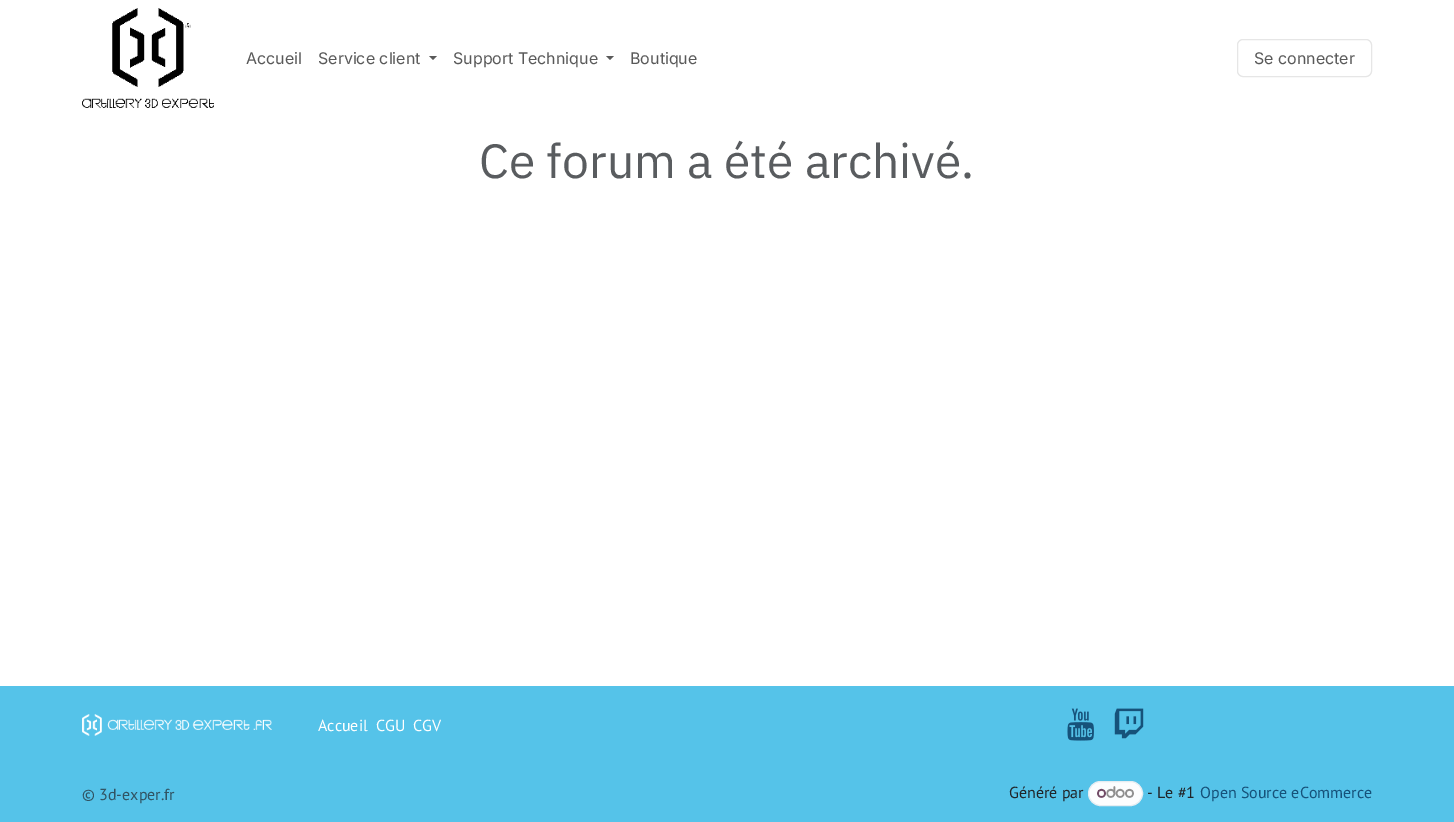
%!PS
<< /PageSize [1454 822] >> setpagedevice
/mt/moveto load def
/li/lineto load def
/cp/closepath load def
/fl/fill load def
/st/stroke load def
/gs/gsave load def
/gr/grestore load def
/co { dup -16 bitshift 255 div exch dup -8 bitshift 255 and 255 div exch 255 and 255 div setrgbcolor } def
/fn { [ exch dup neg 0 0 3 -1 roll 0 0 ] selectfont } def
/tx { co fn moveto show } def
/bx { co rectfill } def
/rr { 5 dict begin { /r /h /w /y /x } { exch def } forall
  x r add y moveto x w add y 2 copy h add r arct x w add y h add x 1 index r arct
  x y h add x y r arct x y 2 copy exch w add exch r arct closepath end } def
/im { 5 dict begin { /h /w /y /x /name } { exch def } forall
  gsave x y translate w h scale
  w h 8 [w 0 0 h 0 0] name (r) file false 3 colorimage grestore end } def
0 822 translate 1 -1 scale
4 setmiterlimit
0 0 1454 822 16#FFFFFF bx
(media/1.raw) 82 8 132 100 im
16#595959 co
429 56 mt 437 56 li 433 60 li cp fl
606 56 mt 614 56 li 610 60 li cp fl
16#E6E6E6 co
1237.5 39.5 134 37 5.5 rr st
0 686 1454 136 16#55C3E9 bx
(media/2.raw) 82 714 190 22 im
(media/3.raw) 1067 708 27 33 im
(media/4.raw) 1114 708 30 31 im
16#FCFDFE co
1088.5 781.5 54 24 12 rr gs fl gr
16#E5EDF2 co
st
(media/5.raw) 1097 786 37 12 im
(Accueil) 246 64 /Inter-Regular 16 16#595959 tx
(Service client) 318 64 /Inter-Regular 16 16#595959 tx
(Support Technique) 453 64 /Inter-Regular 16 16#595959 tx
(Boutique) 630 64 /Inter-Regular 16 16#595959 tx
(Se connecter) 1254 64 /Inter-Regular 16 16#595959 tx
(Ce forum a été archivé.) 479 178 /IBMPlexSans-Regular 48 16#595C5F tx
(Accueil) 318 731 /PTSans-Regular 16 16#FFFFFF tx
(CGU) 376 731 /PTSans-Regular 16 16#FFFFFF tx
(CGV) 413 731 /PTSans-Regular 16 16#FFFFFF tx
(© 3d-exper.fr) 82 800 /PTSans-Regular 16 16#315463 tx
(Généré par) 1009 798 /PTSans-Regular 16 16#212529 tx
(- Le #1) 1147 798 /PTSans-Regular 16 16#212529 tx
(Open Source eCommerce) 1200 798 /PTSans-Regular 16 16#16527A tx
showpage
